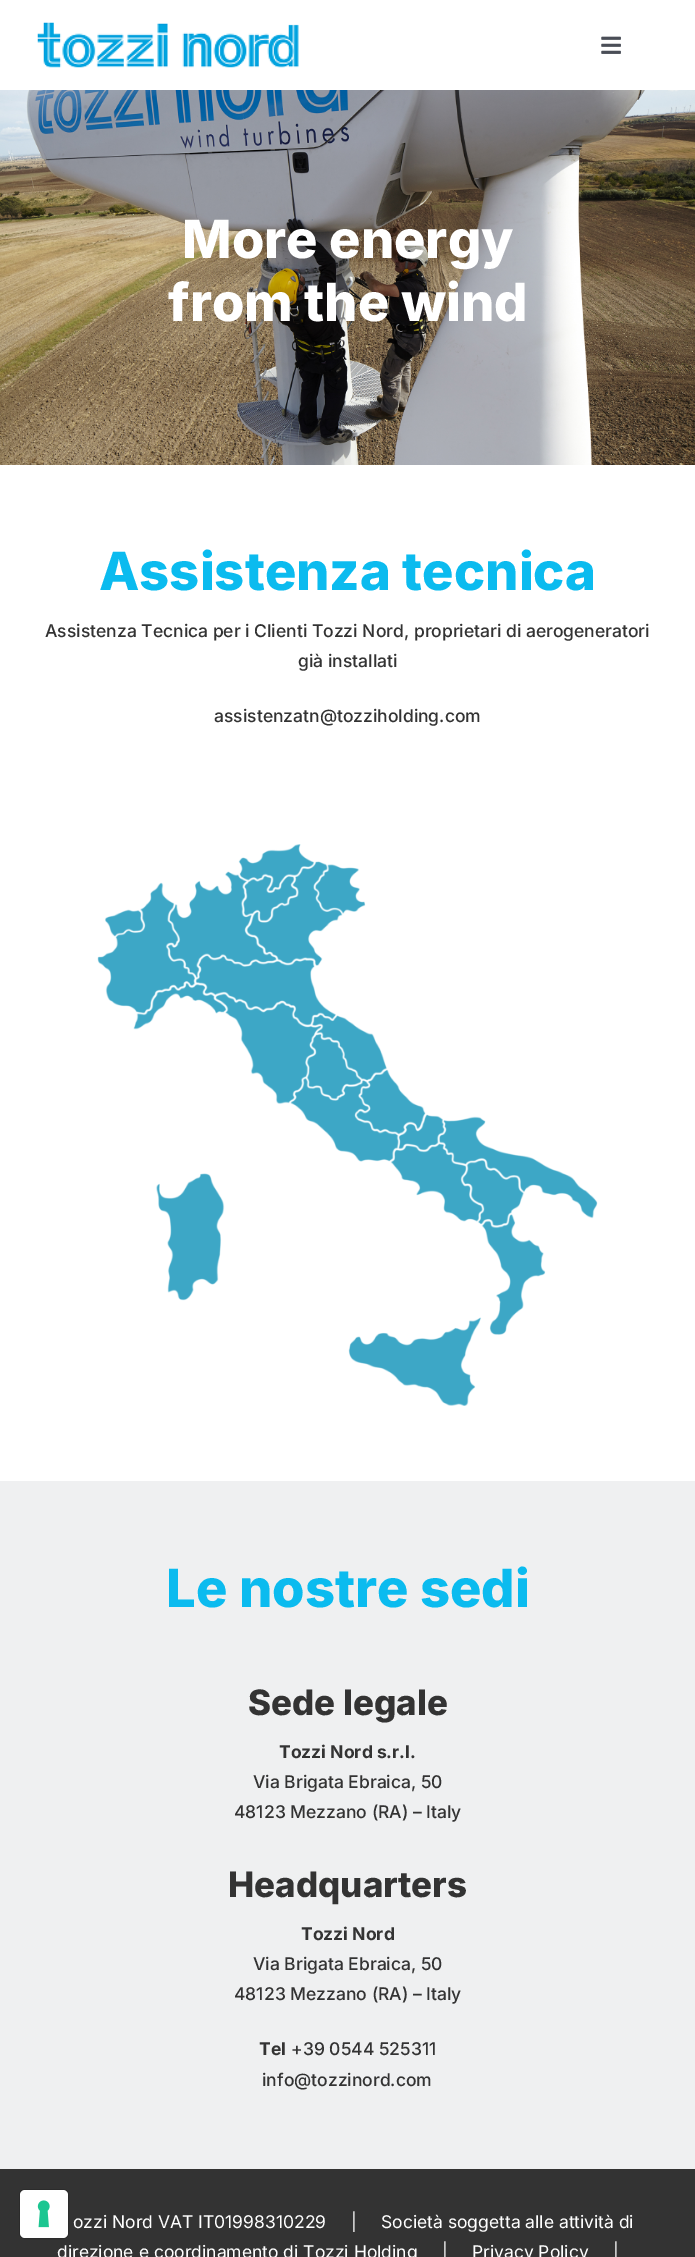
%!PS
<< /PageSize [695 2257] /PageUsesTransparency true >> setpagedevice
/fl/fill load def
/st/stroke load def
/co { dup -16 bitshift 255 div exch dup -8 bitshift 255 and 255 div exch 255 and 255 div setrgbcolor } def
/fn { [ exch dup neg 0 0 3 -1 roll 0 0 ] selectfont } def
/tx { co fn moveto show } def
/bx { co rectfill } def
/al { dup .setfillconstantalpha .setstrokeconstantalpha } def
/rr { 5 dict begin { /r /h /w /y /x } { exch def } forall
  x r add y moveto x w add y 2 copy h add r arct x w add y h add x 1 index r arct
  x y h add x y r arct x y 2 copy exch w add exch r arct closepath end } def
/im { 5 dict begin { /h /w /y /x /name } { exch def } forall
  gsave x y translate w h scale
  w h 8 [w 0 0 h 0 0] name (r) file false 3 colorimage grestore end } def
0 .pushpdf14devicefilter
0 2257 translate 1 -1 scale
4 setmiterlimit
0 0 695 2257 16#FFFFFF bx
0 2169 695 88 16#333333 bx
0.15 al
16#000000 co
19.5 2189.5 49 49 5.5 rr st
1 al
16#FFFFFF co
20 2190 48 48 5 rr fl
(media/1.raw) 37 2200 13 28 im
(media/2.raw) 37 22 262 46 im
(media/3.raw) 601 36 20 18 im
(media/4.raw) 0 90 695 375 im
(media/5.raw) 97 844 501 562 im
0 1481 695 688 16#EFF0F1 bx
(More energy) 182 258 /Inter-ExtraBold 52.5 16#FFFFFF tx
(from the wind) 168 321 /Inter-ExtraBold 52.5 16#FFFFFF tx
(Assistenza tecnica) 99 590 /Inter-ExtraBold 52.5 16#0BBBEF tx
(Assistenza Tecnica per i Clienti Tozzi Nord, proprietari di aerogeneratori) 45 637 /Inter-Medium 17.5 16#333333 tx
(già installati) 298 667 /Inter-Medium 17.5 16#333333 tx
(assistenzatn@tozziholding.com) 214 722 /Inter-Medium 17.5 16#333333 tx
(Le nostre sedi) 166 1607 /Inter-ExtraBold 52.5 16#0BBBEF tx
(Sede legale) 248 1715 /Inter-ExtraBold 35 16#333333 tx
(Tozzi Nord s.r.l.) 279 1758 /Inter-Bold 17.5 16#333333 tx
(Via Brigata Ebraica, 50) 253 1788 /Inter-Medium 17.5 16#333333 tx
(48123 Mezzano \(RA\) – Italy) 234 1818 /Inter-Medium 17.5 16#333333 tx
(Headquarters) 228 1897 /Inter-ExtraBold 35 16#333333 tx
(Tozzi Nord) 301 1940 /Inter-Bold 17.5 16#333333 tx
(Via Brigata Ebraica, 50) 253 1970 /Inter-Medium 17.5 16#333333 tx
(48123 Mezzano \(RA\) – Italy) 234 2000 /Inter-Medium 17.5 16#333333 tx
(Tel) 259 2055 /Inter-Bold 17.5 16#333333 tx
(+39 0544 525311) 291 2055 /Inter-Medium 17.5 16#333333 tx
(info@tozzinord.com) 262 2086 /Inter-Medium 17.5 16#333333 tx
(ozzi Nord VAT IT01998310229     |     Società soggetta alle attività di) 73 2228 /Inter-Regular 17.5 16#FFFFFF tx
(direzione e coordinamento di Tozzi Holding     |) 57 2258 /Inter-Regular 17.5 16#FFFFFF tx
(Privacy Policy) 472 2258 /Inter-Regular 17.5 16#FFFFFF tx
(|) 613 2258 /Inter-Regular 17.5 16#FFFFFF tx
.poppdf14devicefilter showpage
